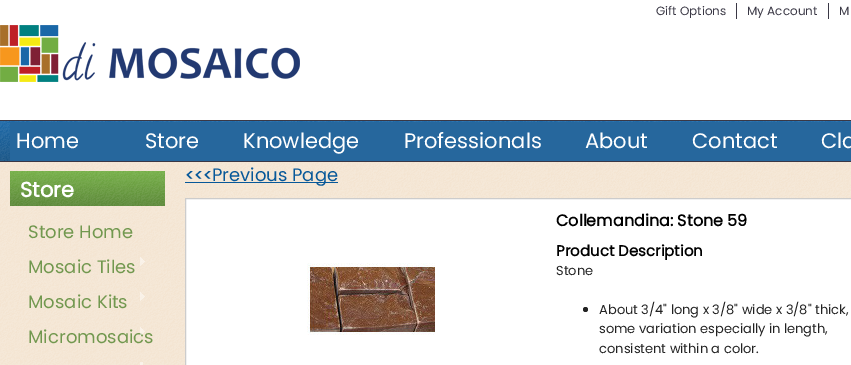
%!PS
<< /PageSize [851 365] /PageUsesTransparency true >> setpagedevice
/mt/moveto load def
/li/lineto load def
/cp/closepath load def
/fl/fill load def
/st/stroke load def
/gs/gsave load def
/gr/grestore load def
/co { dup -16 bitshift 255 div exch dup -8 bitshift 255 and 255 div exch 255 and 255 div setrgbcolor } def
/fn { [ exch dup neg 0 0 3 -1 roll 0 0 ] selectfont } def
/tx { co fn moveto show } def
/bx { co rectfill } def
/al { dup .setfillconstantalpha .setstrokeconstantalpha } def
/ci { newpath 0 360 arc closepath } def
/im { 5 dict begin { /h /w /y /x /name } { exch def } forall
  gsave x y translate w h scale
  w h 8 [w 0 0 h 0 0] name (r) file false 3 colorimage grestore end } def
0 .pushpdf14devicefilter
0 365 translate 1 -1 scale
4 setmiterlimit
0 0 851 365 16#FFFFFF bx
(media/1.raw) 0 120 851 245 im
736 3 1 16 16#3A3845 bx
828 3 1 16 16#3A3845 bx
(media/2.raw) 0 25 300 57 im
10 122 841 39 16#26679D bx
(media/3.raw) 10 171 155 35 im
(media/4.raw) 140 257 5 9 im
(media/5.raw) 140 292 5 9 im
0.47 al
140 362 3 3 16#FFFFFF bx
1 al
185 182 153 1 16#075899 bx
16#FFFFFF co
185.5 198.5 mt 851.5 198.5 li 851.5 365.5 li 185.5 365.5 li cp gs fl gr
16#CCCCCC co
st
(media/7.raw) 307 263 128 72 im
16#222222 co
585.5 309.5 2.5 ci fl
(Gift Options) 656 15 /Poppins-Regular 12 16#3A3845 tx
(My Account) 747 15 /Poppins-Regular 12 16#3A3845 tx
(M) 839 15 /Poppins-Regular 12 16#3A3845 tx
(Home) 16 148 /Poppins-Regular 21 16#FFFFFF tx
(Store) 145 148 /Poppins-Regular 21 16#FFFFFF tx
(Knowledge) 243 148 /Poppins-Regular 21 16#FFFFFF tx
(Professionals) 404 148 /Poppins-Regular 21 16#FFFFFF tx
(About) 585 148 /Poppins-Regular 21 16#FFFFFF tx
(Contact) 692 148 /Poppins-Regular 21 16#FFFFFF tx
(Cla) 821 148 /Poppins-Regular 21 16#FFFFFF tx
(Store) 20 197 /Poppins-Bold 21 16#FFFFFF tx
(Store Home) 28 238 /Poppins-Regular 18 16#72984F tx
(Mosaic Tiles) 28 273 /Poppins-Regular 18 16#72984F tx
(Mosaic Kits) 28 308 /Poppins-Regular 18 16#72984F tx
(Micromosaics) 28 343 /Poppins-Regular 18 16#72984F tx
(media/6.raw) 140 327 5 9 im
(<<<) 185 181 /Poppins-Bold 16 16#075899 tx
(Previous Page) 212 181 /Poppins-Regular 18 16#075899 tx
(Collemandina: Stone 59) 556 226 /Poppins-Bold 16 16#000000 tx
(Product Description) 556 256 /Poppins-Bold 15 16#000000 tx
(Stone) 556 275 /Poppins-Regular 13 16#222222 tx
(About 3/4" long x 3/8" wide x 3/8" thick,) 599 314 /Poppins-Regular 13 16#222222 tx
(some variation especially in length,) 599 333 /Poppins-Regular 13 16#222222 tx
(consistent within a color.) 599 353 /Poppins-Regular 13 16#222222 tx
.poppdf14devicefilter showpage
